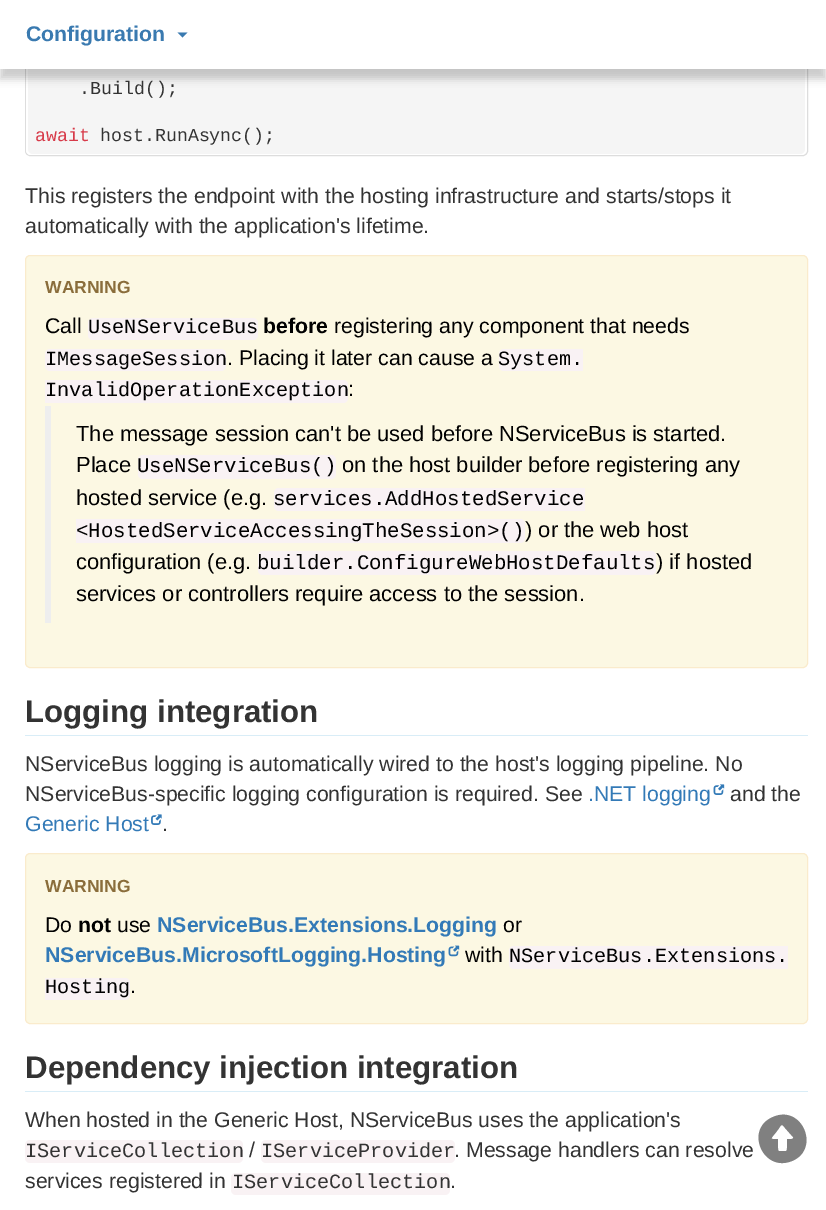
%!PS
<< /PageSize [826 1210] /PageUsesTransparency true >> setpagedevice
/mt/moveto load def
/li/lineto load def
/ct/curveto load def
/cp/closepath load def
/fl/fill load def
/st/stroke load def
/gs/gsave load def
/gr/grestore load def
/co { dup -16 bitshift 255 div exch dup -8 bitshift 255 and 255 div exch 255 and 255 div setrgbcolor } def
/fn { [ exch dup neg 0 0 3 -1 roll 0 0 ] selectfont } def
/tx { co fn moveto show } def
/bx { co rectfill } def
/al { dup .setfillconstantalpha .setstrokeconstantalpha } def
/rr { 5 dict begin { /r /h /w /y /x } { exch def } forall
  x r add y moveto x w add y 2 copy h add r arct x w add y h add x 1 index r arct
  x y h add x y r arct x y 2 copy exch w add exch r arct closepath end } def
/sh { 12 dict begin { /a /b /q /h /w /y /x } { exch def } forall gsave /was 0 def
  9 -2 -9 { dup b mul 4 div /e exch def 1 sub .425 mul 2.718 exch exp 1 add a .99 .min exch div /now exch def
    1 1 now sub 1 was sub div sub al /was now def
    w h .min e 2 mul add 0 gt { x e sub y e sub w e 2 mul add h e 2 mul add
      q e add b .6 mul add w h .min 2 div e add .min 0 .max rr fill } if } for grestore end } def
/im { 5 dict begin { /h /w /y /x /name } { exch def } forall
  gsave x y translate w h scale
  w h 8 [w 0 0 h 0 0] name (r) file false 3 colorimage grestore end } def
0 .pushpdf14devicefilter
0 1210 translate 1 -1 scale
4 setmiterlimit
0 0 826 1210 16#FFFFFF bx
16#DDDDDD co
25.5 -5.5 782 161 4.5 rr st
16#FFFFFF co
26 -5 780 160 5 rr fl
16#F5F5F5 co
28 -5 777 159 5 rr fl
16#000000 co
0 9 826 70 0 4 .2 sh
0 0 826 69 16#FFFFFF bx
16#3A7AB0 co
177.5 32.5 mt 187.5 32.5 li 182.5 37.5 li cp fl
16#FCF8E3 co
25.5 255.5 782 412 4.5 rr gs fl gr
16#FAEBCC co
st
16#F9F2F4 co
88 318 170 22 5 rr fl
45 349 181 22 5 rr fl
504 349 mt 583 349 li 583 371 li 504 371 li 501 371 499 369 499 366 ct 499 354 li 499 351 501 349 504 349 ct cp fl
45 380 mt 343 380 li 346 380 348 382 348 385 ct 348 398 li 348 401 346 403 343 403 ct 45 403 li cp fl
45 406 6 217 16#EEEEEE bx
16#F9F2F4 co
138 455 198 24 5 rr fl
279 488 mt 385 488 li 385 511 li 279 511 li 276 511 274 509 274 506 ct 274 493 li 274 490 276 488 279 488 ct cp fl
385 488 200 23 16#F9F2F4 bx
76 519 mt 520 519 li 523 519 525 521 525 524 ct 525 538 li 525 541 523 543 520 543 ct 76 543 li cp fl
263 551 mt 358 551 li 358 575 li 263 575 li 260 575 258 573 258 570 ct 258 556 li 258 553 260 551 263 551 ct cp fl
358 551 mt 651 551 li 654 551 656 553 656 556 ct 656 570 li 656 573 654 575 651 575 ct 358 575 li cp fl
25 735 783 1 16#D9EDF7 bx
(media/1.raw) 713 784 12 11 im
(media/2.raw) 151 814 11 11 im
16#FCF8E3 co
25.5 853.5 782 170 4.5 rr gs fl gr
16#FAEBCC co
st
(media/3.raw) 448 945 12 12 im
16#F9F2F4 co
514 946 mt 654 946 li 654 969 li 514 969 li 511 969 509 967 509 964 ct 509 951 li 509 948 511 946 514 946 ct cp fl
654 946 134 23 16#F9F2F4 bx
45 978 mt 125 978 li 128 978 130 980 130 983 ct 130 995 li 130 998 128 1000 125 1000 ct 45 1000 li cp fl
25 1091 783 1 16#D9EDF7 bx
16#F9F2F4 co
25 1140 218 23 5 rr fl
261 1140 194 23 5 rr fl
231 1173 219 22 5 rr fl
16#808080 co
773 1117 mt 802 1104 821 1149 792 1161 ct 763 1173 744 1129 773 1117 ct cp 793 1137 mt 785 1128 li 781 1122 781 1126 777 1131 ct 770 1140 769 1139 778 1139 ct 778 1148 li 778 1152 779 1151 782 1151 ct 786 1151 787 1152 787 1148 ct 787 1139 li 787 1139 795 1140 793 1137 ct cp fl
(Configuration) 26 41 /LiberationSans-Bold 21.25 16#3A7AB0 tx
(.Build\(\);) 79 94 /LiberationMono-Regular 18.25 16#333333 tx
(await) 35 141 /LiberationMono-Regular 18.25 16#D73A49 tx
(host.RunAsync\(\);) 100 141 /LiberationMono-Regular 18.25 16#333333 tx
(This registers the endpoint with the hosting infrastructure and starts/stops it) 25 203 /LiberationSans-Regular 21.25 16#333333 tx
(automatically with the application's lifetime.) 25 233 /LiberationSans-Regular 21.25 16#333333 tx
(WARNING) 45 293 /LiberationSans-Bold 17.5 16#8A6D3B tx
(Call) 45 333 /LiberationSans-Regular 21.25 16#000000 tx
(UseNServiceBus) 88 333 /LiberationMono-Regular 20.25 16#000000 tx
(before) 263 333 /LiberationSans-Bold 21.25 16#000000 tx
(registering any component that needs) 334 333 /LiberationSans-Regular 21.25 16#000000 tx
(IMessageSession) 45 365 /LiberationMono-Regular 20.25 16#000000 tx
(. Placing it later can cause a) 227 365 /LiberationSans-Regular 21.25 16#000000 tx
(System.) 498 365 /LiberationMono-Regular 20.25 16#000000 tx
(InvalidOperationException) 45 396 /LiberationMono-Regular 20.25 16#000000 tx
(:) 348 396 /LiberationSans-Regular 21.25 16#000000 tx
(The message session can't be used before NServiceBus is started.) 76 441 /LiberationSans-Regular 21.9 16#000000 tx
(Place) 76 472 /LiberationSans-Regular 21.9 16#000000 tx
(UseNServiceBus\(\)) 137 472 /LiberationMono-Regular 20.75 16#000000 tx
(on the host builder before registering any) 342 472 /LiberationSans-Regular 21.9 16#000000 tx
(hosted service \(e.g.) 76 505 /LiberationSans-Regular 21.9 16#000000 tx
(services.AddHostedService) 273 505 /LiberationMono-Regular 20.75 16#000000 tx
(<HostedServiceAccessingTheSession>\(\)) 76 537 /LiberationMono-Regular 20.75 16#000000 tx
(\) or the web host) 525 537 /LiberationSans-Regular 21.9 16#000000 tx
(configuration \(e.g.) 76 569 /LiberationSans-Regular 21.9 16#000000 tx
(builder.ConfigureWebHostDefaults) 257 569 /LiberationMono-Regular 20.75 16#000000 tx
(\) if hosted) 656 569 /LiberationSans-Regular 21.9 16#000000 tx
(services or controllers require access to the session.) 76 601 /LiberationSans-Regular 21.9 16#000000 tx
(Logging integration) 25 722 /LiberationSans-Bold 31.25 16#333333 tx
(NServiceBus logging is automatically wired to the host's logging pipeline. No) 25 771 /LiberationSans-Regular 21.25 16#333333 tx
(NServiceBus-specific logging configuration is required. See) 25 801 /LiberationSans-Regular 21.25 16#333333 tx
(.NET logging) 588 801 /LiberationSans-Regular 21.25 16#337AB7 tx
(and the) 730 801 /LiberationSans-Regular 21.25 16#333333 tx
(Generic Host) 25 831 /LiberationSans-Regular 21.25 16#337AB7 tx
(.) 162 831 /LiberationSans-Regular 21.25 16#333333 tx
(WARNING) 45 892 /LiberationSans-Bold 17.5 16#8A6D3B tx
(Do) 45 932 /LiberationSans-Regular 21.25 16#000000 tx
(not) 78 932 /LiberationSans-Bold 21.25 16#000000 tx
(use) 117 932 /LiberationSans-Regular 21.25 16#000000 tx
(NServiceBus.Extensions.Logging) 157 932 /LiberationSans-Bold 21.25 16#337AB7 tx
(or) 503 932 /LiberationSans-Regular 21.25 16#000000 tx
(NServiceBus.MicrosoftLogging.Hosting) 45 962 /LiberationSans-Bold 21.25 16#337AB7 tx
(with) 465 962 /LiberationSans-Regular 21.25 16#000000 tx
(NServiceBus.Extensions.) 509 962 /LiberationMono-Regular 20.25 16#000000 tx
(Hosting) 45 993 /LiberationMono-Regular 20.25 16#000000 tx
(.) 130 993 /LiberationSans-Regular 21.25 16#000000 tx
(Dependency injection integration) 25 1078 /LiberationSans-Bold 31.25 16#333333 tx
(When hosted in the Generic Host, NServiceBus uses the application's) 25 1127 /LiberationSans-Regular 21.25 16#333333 tx
(IServiceCollection) 25 1157 /LiberationMono-Regular 20.25 16#333333 tx
(/) 249 1157 /LiberationSans-Regular 21.25 16#333333 tx
(IServiceProvider) 261 1157 /LiberationMono-Regular 20.25 16#333333 tx
(. Message handlers can resolve) 454 1157 /LiberationSans-Regular 21.25 16#333333 tx
(services registered in) 25 1188 /LiberationSans-Regular 21.25 16#333333 tx
(IServiceCollection) 232 1188 /LiberationMono-Regular 20.25 16#333333 tx
(.) 450 1188 /LiberationSans-Regular 21.25 16#333333 tx
.poppdf14devicefilter showpage
